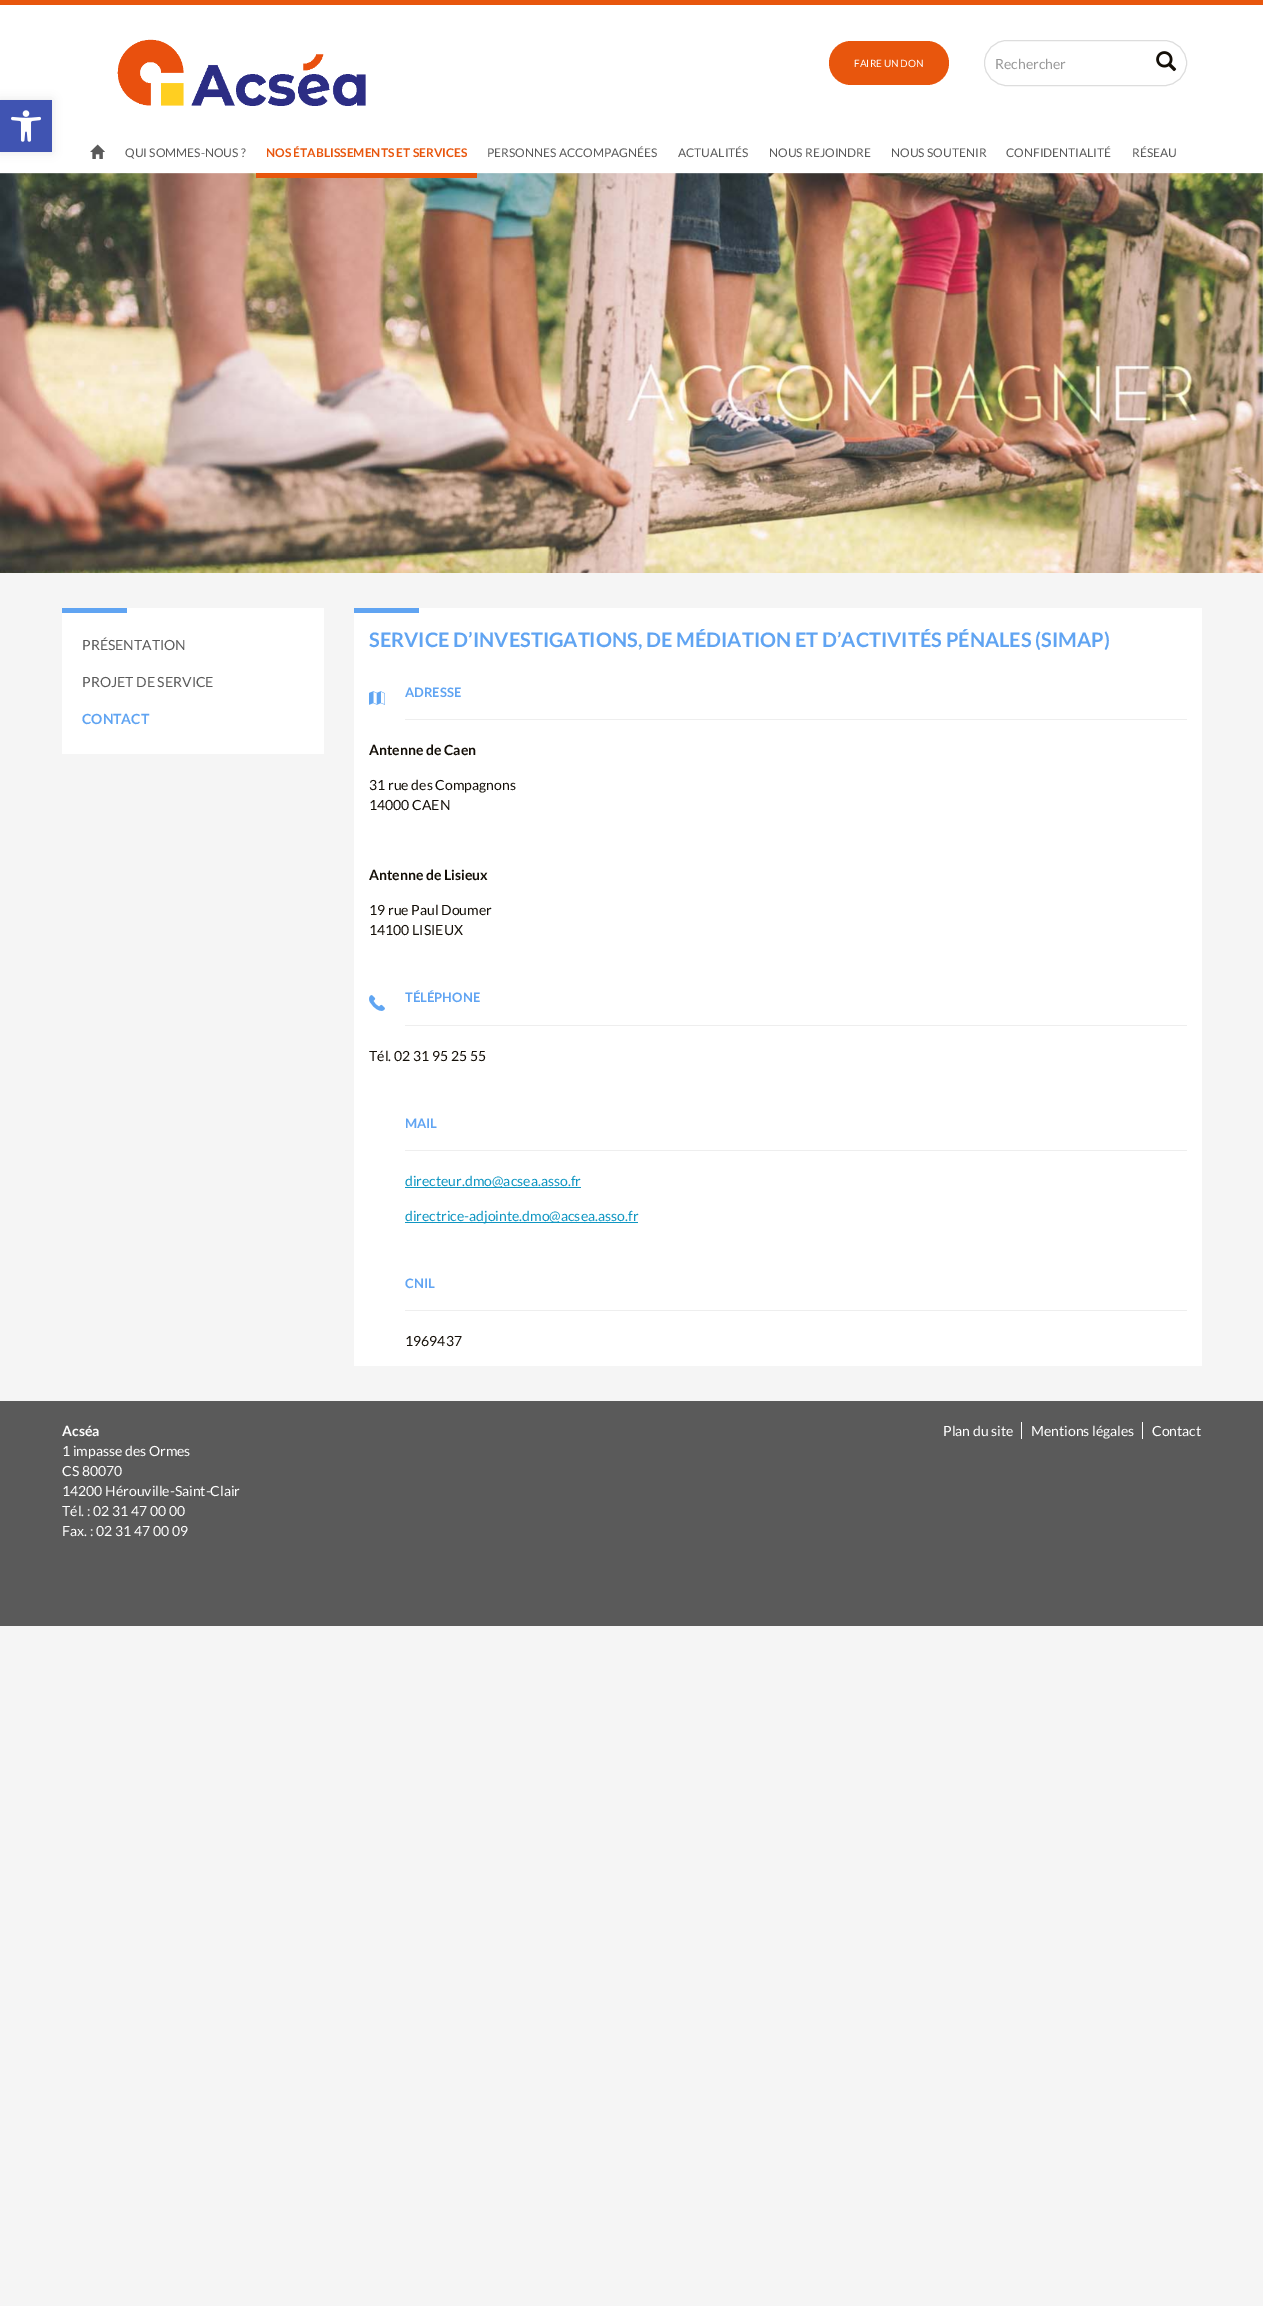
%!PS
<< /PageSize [1263 2306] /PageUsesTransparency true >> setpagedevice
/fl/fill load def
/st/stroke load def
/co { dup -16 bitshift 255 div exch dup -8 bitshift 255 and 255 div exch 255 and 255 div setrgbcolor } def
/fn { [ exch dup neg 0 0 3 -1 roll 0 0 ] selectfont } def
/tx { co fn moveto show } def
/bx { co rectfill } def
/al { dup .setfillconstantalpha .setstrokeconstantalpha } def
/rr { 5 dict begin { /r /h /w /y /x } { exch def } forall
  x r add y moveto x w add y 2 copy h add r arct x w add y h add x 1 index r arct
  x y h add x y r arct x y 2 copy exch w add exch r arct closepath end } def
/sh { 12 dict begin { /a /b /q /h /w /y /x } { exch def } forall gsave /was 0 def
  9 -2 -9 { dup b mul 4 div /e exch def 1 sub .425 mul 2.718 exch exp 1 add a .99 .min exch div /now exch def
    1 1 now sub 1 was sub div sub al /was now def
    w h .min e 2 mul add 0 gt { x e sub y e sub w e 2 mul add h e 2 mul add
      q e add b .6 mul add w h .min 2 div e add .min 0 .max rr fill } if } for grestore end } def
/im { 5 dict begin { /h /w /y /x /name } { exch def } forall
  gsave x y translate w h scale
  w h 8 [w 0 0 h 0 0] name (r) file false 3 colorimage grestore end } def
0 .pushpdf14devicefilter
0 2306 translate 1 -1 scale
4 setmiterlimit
0 0 1263 2306 16#F5F5F5 bx
0 0 1263 5 16#E8560D bx
0 5 1263 168 16#FFFFFF bx
16#000000 co
0 100 52 52 0 5 .1 sh
0 100 52 52 16#4054B2 bx
(media/1.raw) 11 110 30 32 im
(media/2.raw) 117 39 249 67 im
16#E8560D co
829 41 120 44 22 rr fl
16#DDDDDD co
984.5 40.5 202 45 22.5 rr st
(media/3.raw) 1156 51 21 21 im
(media/4.raw) 90 144 15 15 im
(media/5.raw) 0 173 1263 400 im
256 173 221 5 16#E8560D bx
62 608 262 146 16#FFFFFF bx
62 608 65 5 16#60A4F2 bx
354 608 848 758 16#FFFFFF bx
354 608 65 5 16#60A4F2 bx
(media/6.raw) 369 691 16 14 im
405 719 782 1 16#EEEEEE bx
(media/7.raw) 369 995 16 16 im
405 1025 782 1 16#EEEEEE bx
405 1150 782 1 16#EEEEEE bx
405 1187 176 1 16#0F96C2 bx
405 1222 233 1 16#0F96C2 bx
405 1310 782 1 16#EEEEEE bx
0 1401 1263 225 16#5A5A5A bx
1021 1422 1 17 16#FFFFFF bx
1142 1422 1 17 16#FFFFFF bx
(FAIRE UN DON) 854 67 /Lato-Regular 10 16#FFFFFF tx
(Rechercher) 995 69 /Lato-Regular 14 16#999999 tx
(QUI SOMMES-NOUS ?) 125 157 /Lato-Regular 12 16#5A5A5A tx
(NOS ÉTABLISSEMENTS ET SERVICES) 266 157 /Lato-Bold 12 16#E8560D tx
(PERSONNES ACCOMPAGNÉES) 487 157 /Lato-Regular 12 16#5A5A5A tx
(ACTUALITÉS) 678 157 /Lato-Regular 12 16#5A5A5A tx
(NOUS REJOINDRE) 769 157 /Lato-Regular 12 16#5A5A5A tx
(NOUS SOUTENIR) 891 157 /Lato-Regular 12 16#5A5A5A tx
(CONFIDENTIALITÉ) 1006 157 /Lato-Regular 12 16#5A5A5A tx
(RÉSEAU) 1132 157 /Lato-Regular 12 16#5A5A5A tx
(PRÉSENTATION) 82 650 /Lato-Regular 14 16#5A5A5A tx
(PROJET DE SERVICE) 82 687 /Lato-Regular 14 16#5A5A5A tx
(CONTACT) 82 724 /Lato-Bold 14 16#60A4F2 tx
(SERVICE D’INVESTIGATIONS, DE MÉDIATION ET D’ACTIVITÉS PÉNALES \(SIMAP\)) 369 647 /Lato-Bold 20 16#60A4F2 tx
(ADRESSE) 405 697 /Lato-Bold 13 16#60A4F2 tx
(Antenne de Caen) 369 755 /Lato-Bold 14 16#140F08 tx
(31 rue des Compagnons) 369 790 /Lato-Regular 14 16#140F08 tx
(14000 CAEN) 369 810 /Lato-Regular 14 16#140F08 tx
(Antenne de Lisieux) 369 880 /Lato-Bold 14 16#140F08 tx
(19 rue Paul Doumer) 369 915 /Lato-Regular 14 16#140F08 tx
(14100 LISIEUX) 369 935 /Lato-Regular 14 16#140F08 tx
(TÉLÉPHONE) 405 1002 /Lato-Bold 13 16#60A4F2 tx
(Tél. 02 31 95 25 55) 369 1061 /Lato-Regular 14 16#140F08 tx
(MAIL) 405 1128 /Lato-Bold 13 16#60A4F2 tx
(directeur.dmo@acsea.asso.fr) 405 1186 /Lato-Regular 14 16#0F96C2 tx
(directrice-adjointe.dmo@acsea.asso.fr) 405 1221 /Lato-Regular 14 16#0F96C2 tx
(CNIL) 405 1288 /Lato-Bold 13 16#60A4F2 tx
(1969437) 405 1346 /Lato-Regular 14 16#140F08 tx
(Acséa) 62 1436 /Lato-Bold 14 16#FFFFFF tx
(1 impasse des Ormes) 62 1456 /Lato-Regular 14 16#FFFFFF tx
(CS 80070) 62 1476 /Lato-Regular 14 16#FFFFFF tx
(14200 Hérouville-Saint-Clair) 62 1496 /Lato-Regular 14 16#FFFFFF tx
(Tél. : 02 31 47 00 00) 62 1516 /Lato-Regular 14 16#FFFFFF tx
(Fax. : 02 31 47 00 09) 62 1536 /Lato-Regular 14 16#FFFFFF tx
(Plan du site) 943 1436 /Lato-Regular 14 16#FFFFFF tx
(Mentions légales) 1031 1436 /Lato-Regular 14 16#FFFFFF tx
(Contact) 1152 1436 /Lato-Regular 14 16#FFFFFF tx
.poppdf14devicefilter showpage
